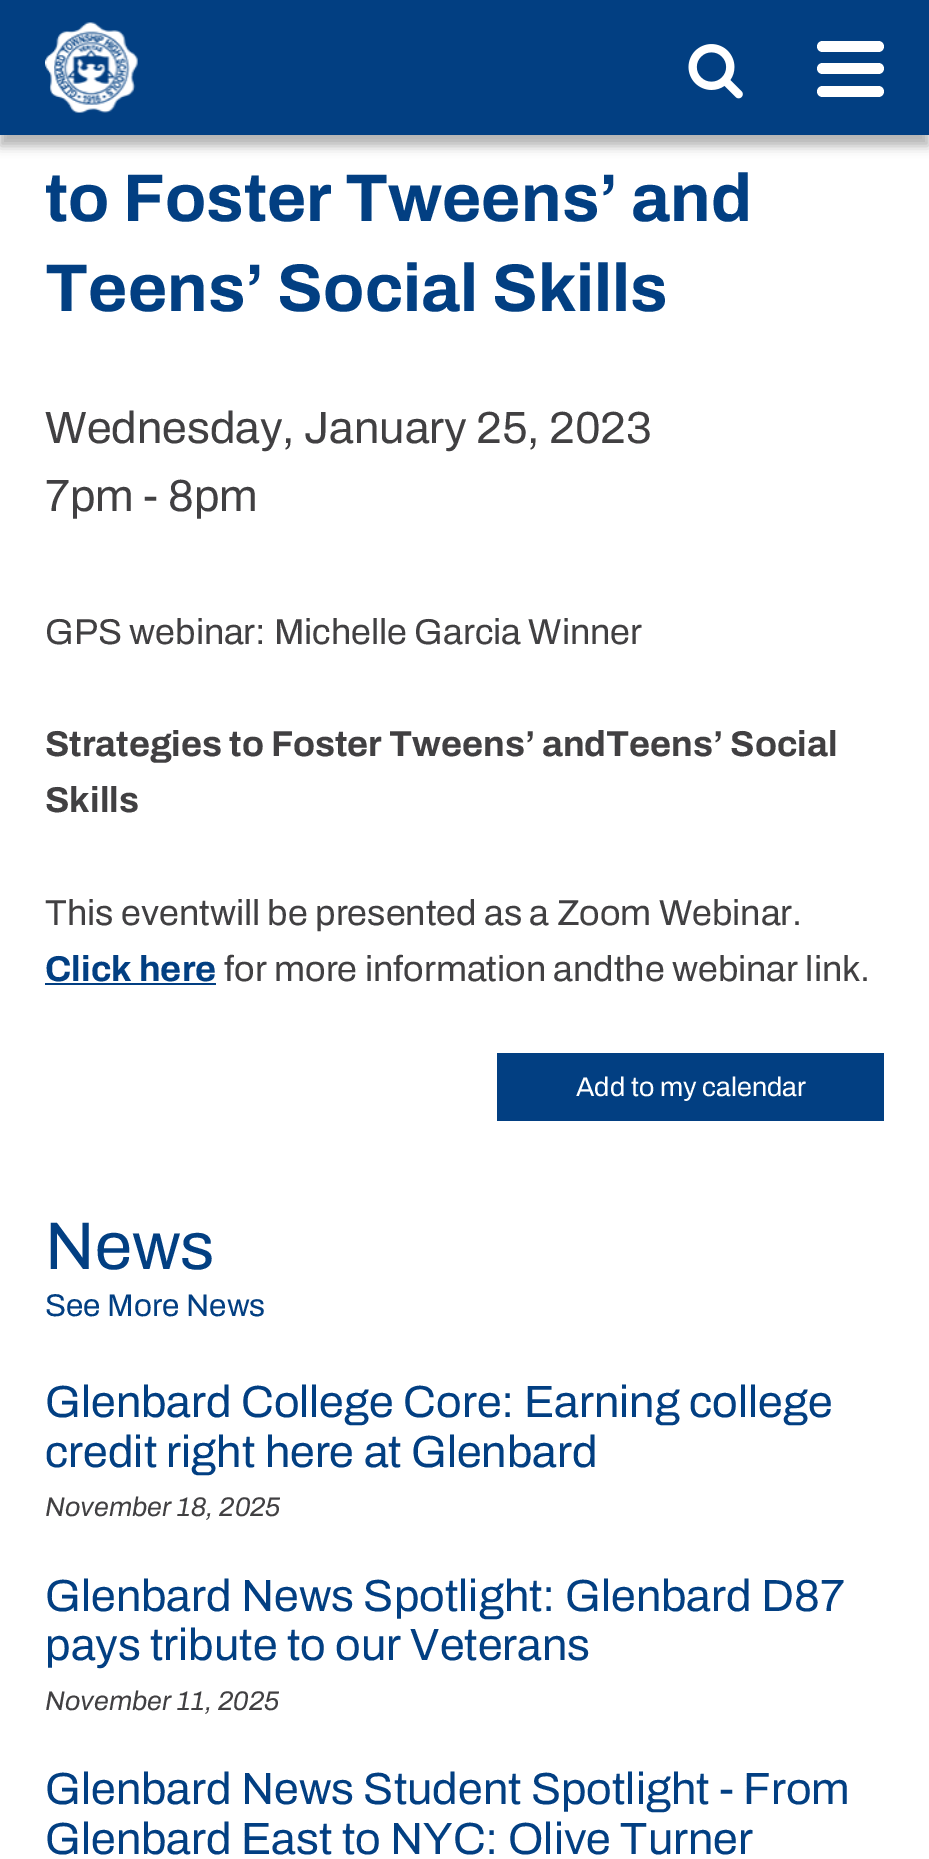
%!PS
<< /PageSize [929 1859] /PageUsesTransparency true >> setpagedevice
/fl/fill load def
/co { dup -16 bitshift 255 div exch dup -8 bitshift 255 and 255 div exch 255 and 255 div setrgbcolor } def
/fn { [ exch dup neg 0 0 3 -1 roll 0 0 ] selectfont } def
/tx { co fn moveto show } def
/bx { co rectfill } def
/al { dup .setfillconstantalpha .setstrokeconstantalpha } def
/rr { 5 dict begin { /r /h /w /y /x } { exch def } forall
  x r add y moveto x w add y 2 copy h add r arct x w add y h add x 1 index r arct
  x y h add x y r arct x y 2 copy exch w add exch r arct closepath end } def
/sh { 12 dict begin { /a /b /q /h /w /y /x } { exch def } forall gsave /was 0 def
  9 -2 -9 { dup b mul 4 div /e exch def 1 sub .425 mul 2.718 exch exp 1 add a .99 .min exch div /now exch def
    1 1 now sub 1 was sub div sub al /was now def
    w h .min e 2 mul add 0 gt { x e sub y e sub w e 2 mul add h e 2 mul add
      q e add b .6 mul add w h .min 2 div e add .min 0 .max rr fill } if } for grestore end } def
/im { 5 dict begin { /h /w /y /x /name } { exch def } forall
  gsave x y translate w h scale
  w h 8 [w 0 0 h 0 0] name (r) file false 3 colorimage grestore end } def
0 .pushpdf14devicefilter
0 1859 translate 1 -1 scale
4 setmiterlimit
0 0 929 1859 16#FFFFFF bx
16#000000 co
0 11 929 135 0 5.5 .3 sh
0 0 929 135 16#023F82 bx
(media/1.raw) 45 22 93 91 im
(media/2.raw) 688 44 55 55 im
16#FFFFFF co
817 41 67 11 5.5 rr fl
817 63 67 11 5.5 rr fl
817 86 67 11 5.5 rr fl
45 983 171 2 16#023F82 bx
497 1053 387 68 16#023F82 bx
(to Foster Tweens’ and) 45 221 /Archivo-Bold 67.5 16#023F82 tx
(Teens’ Social Skills) 45 311 /Archivo-Bold 67.5 16#023F82 tx
(Wednesday, January 25, 2023) 45 443 /Archivo-Regular 45 16#414042 tx
(7pm - 8pm) 45 511 /Archivo-Regular 45 16#414042 tx
(GPS webinar: Michelle Garcia Winner) 45 644 /Archivo-Regular 36 16#414042 tx
(Strategies to Foster Tweens’ andTeens’ Social) 45 756 /Archivo-Bold 36 16#414042 tx
(Skills) 45 812 /Archivo-Bold 36 16#414042 tx
(This eventwill be presented as a Zoom Webinar.) 45 925 /Archivo-Regular 36 16#414042 tx
(Click here) 45 981 /Archivo-Bold 36 16#023F82 tx
(for more information andthe webinar link.) 224 981 /Archivo-Regular 36 16#414042 tx
(Add to my calendar) 576 1096 /Archivo-Regular 27 16#FFFFFF tx
(News) 45 1269 /Archivo-Regular 67.5 16#023F82 tx
(See More News) 45 1316 /Archivo-Regular 31.5 16#023F82 tx
(Glenbard College Core: Earning college) 45 1417 /Archivo-Regular 45 16#023F82 tx
(credit right here at Glenbard) 45 1467 /Archivo-Regular 45 16#023F82 tx
(November 18, 2025) 45 1516 /Archivo-SemiBoldItalic 27 16#414042 tx
(Glenbard News Spotlight: Glenbard D87) 45 1611 /Archivo-Regular 45 16#023F82 tx
(pays tribute to our Veterans) 45 1660 /Archivo-Regular 45 16#023F82 tx
(November 11, 2025) 45 1710 /Archivo-SemiBoldItalic 27 16#414042 tx
(Glenbard News Student Spotlight - From) 45 1804 /Archivo-Regular 45 16#023F82 tx
(Glenbard East to NYC: Olive Turner) 45 1854 /Archivo-Regular 45 16#023F82 tx
.poppdf14devicefilter showpage
